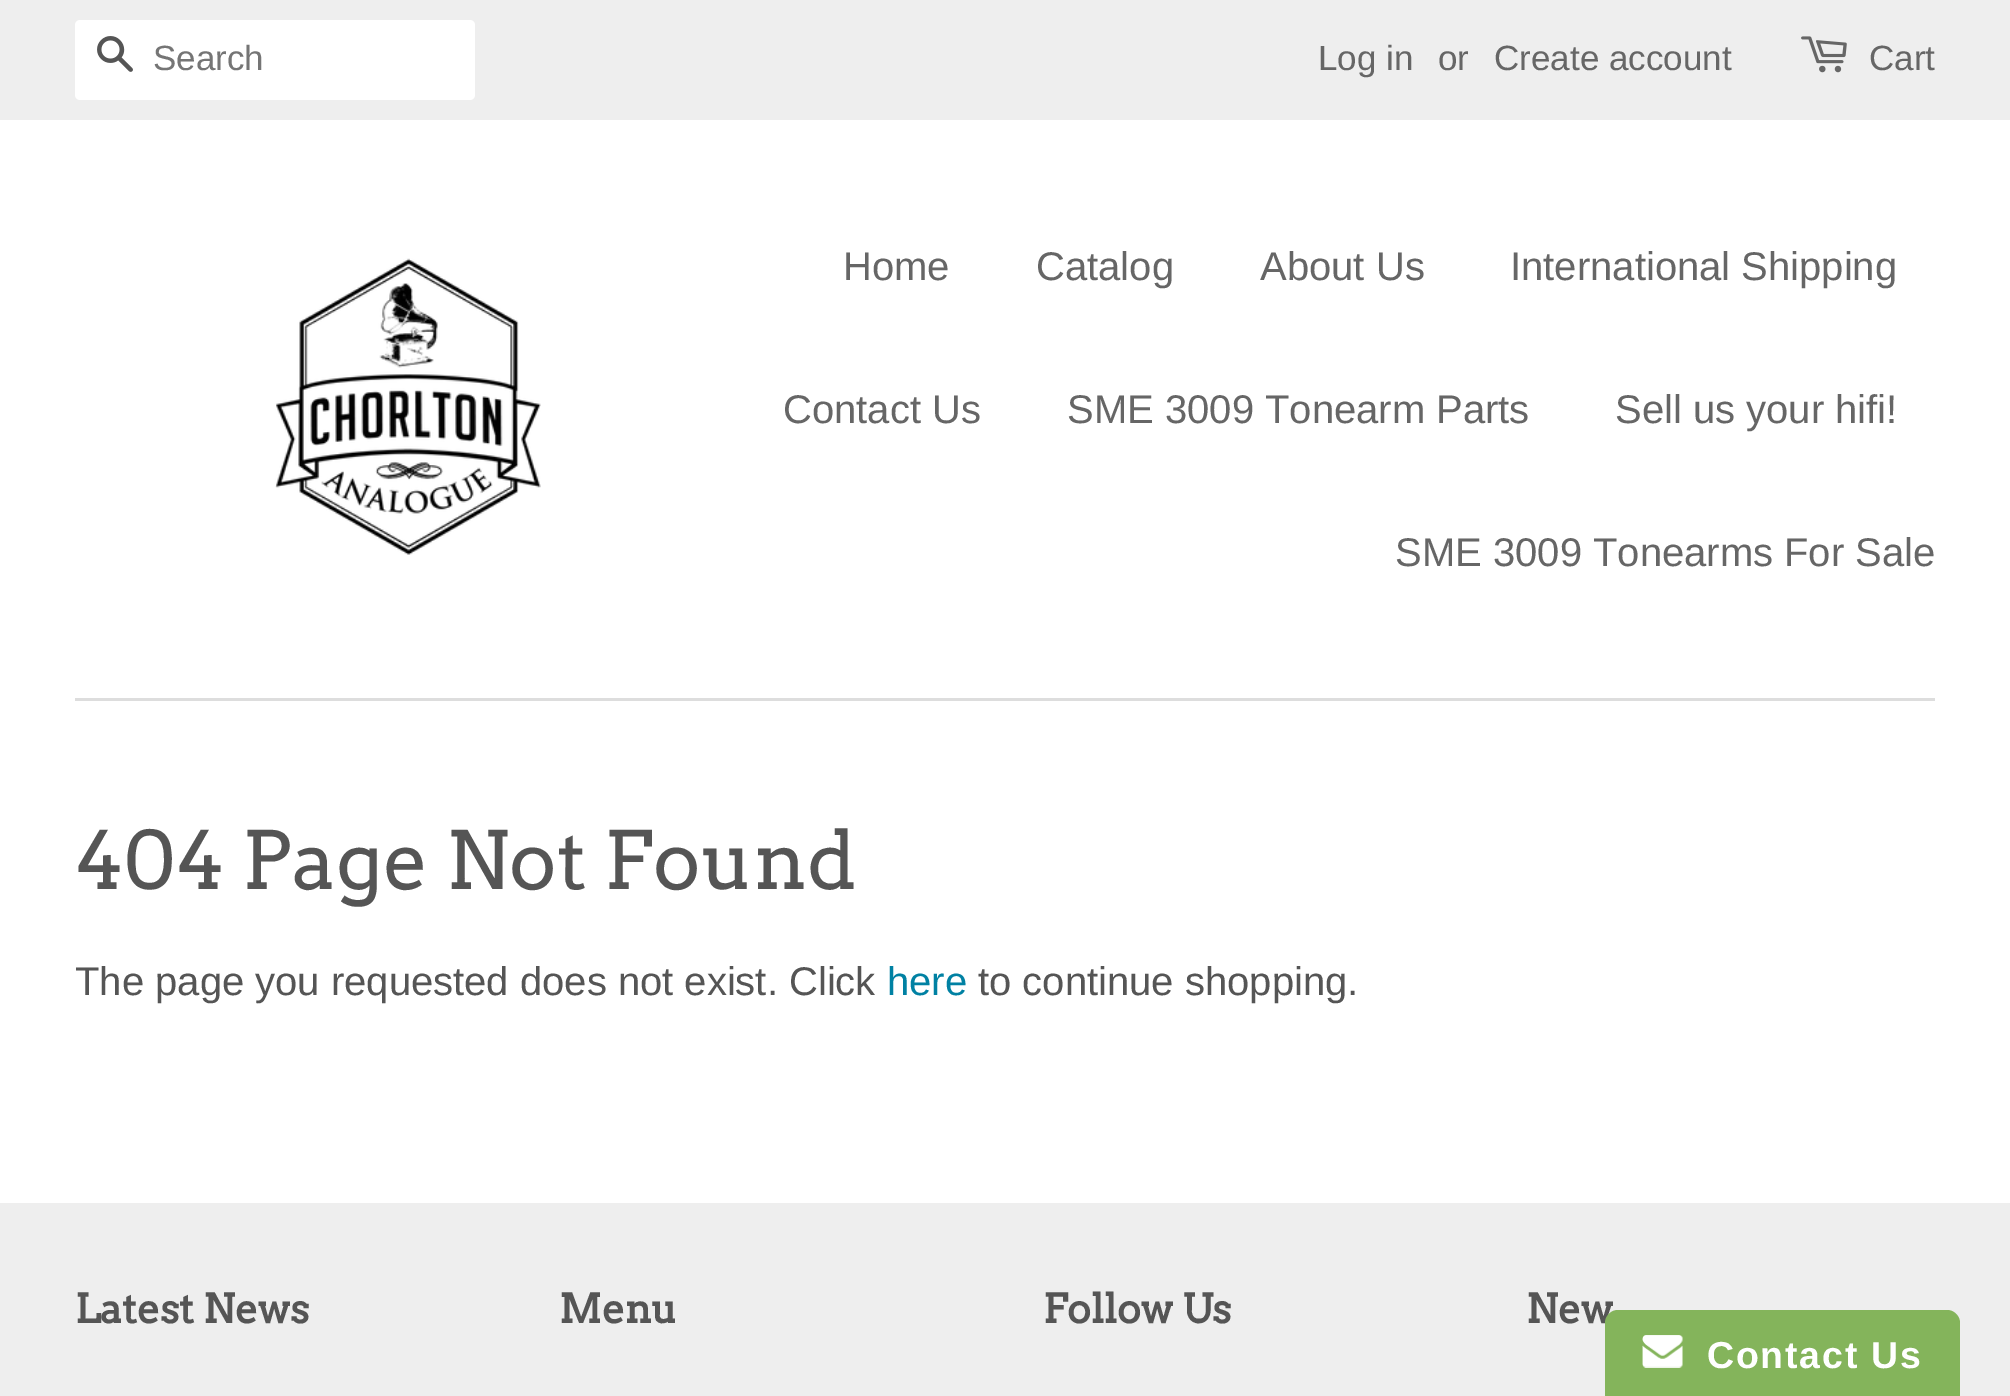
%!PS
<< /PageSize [2010 1396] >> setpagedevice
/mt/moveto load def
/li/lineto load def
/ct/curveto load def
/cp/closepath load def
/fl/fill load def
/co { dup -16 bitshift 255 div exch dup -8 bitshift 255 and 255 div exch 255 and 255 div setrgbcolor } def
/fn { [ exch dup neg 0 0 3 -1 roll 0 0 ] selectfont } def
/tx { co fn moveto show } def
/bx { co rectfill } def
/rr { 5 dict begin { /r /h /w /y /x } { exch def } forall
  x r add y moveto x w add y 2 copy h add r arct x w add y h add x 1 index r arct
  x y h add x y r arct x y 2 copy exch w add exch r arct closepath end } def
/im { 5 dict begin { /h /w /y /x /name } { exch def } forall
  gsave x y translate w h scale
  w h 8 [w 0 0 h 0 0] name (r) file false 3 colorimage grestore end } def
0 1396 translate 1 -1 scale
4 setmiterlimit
0 0 2010 1396 16#FFFFFF bx
0 0 2010 120 16#EEEEEE bx
16#FFFFFF co
75 20 400 80 5 rr fl
(media/1.raw) 97 36 36 36 im
(media/2.raw) 1801 36 46 37 im
75 698 1860 3 16#DDDDDD bx
(media/3.raw) 275 258 266 297 im
0 1203 2010 193 16#EEEEEE bx
(Search) 153 70 /LiberationSans-Regular 35 16#757575 tx
(Log in) 1318 70 /LiberationSans-Regular 35 16#666666 tx
(or) 1438 70 /LiberationSans-Regular 35 16#666666 tx
(Create account) 1494 70 /LiberationSans-Regular 35 16#666666 tx
(Cart) 1869 70 /LiberationSans-Regular 35 16#666666 tx
(Home) 843 280 /LiberationSans-Regular 40 16#666666 tx
(Catalog) 1036 280 /LiberationSans-Regular 40 16#666666 tx
(About Us) 1260 280 /LiberationSans-Regular 40 16#666666 tx
(International Shipping) 1510 280 /LiberationSans-Regular 40 16#666666 tx
(Contact Us) 783 423 /LiberationSans-Regular 40 16#666666 tx
(SME 3009 Tonearm Parts) 1067 423 /LiberationSans-Regular 40 16#666666 tx
(Sell us your hifi!) 1615 423 /LiberationSans-Regular 40 16#666666 tx
(SME 3009 Tonearms For Sale) 1395 566 /LiberationSans-Regular 40 16#666666 tx
(404 Page Not Found) 75 889 /Arvo-Regular 80 16#555555 tx
(The page you requested does not exist. Click) 75 995 /LiberationSans-Regular 40 16#555555 tx
(here) 887 995 /LiberationSans-Regular 40 16#0081A3 tx
(to continue shopping.) 978 995 /LiberationSans-Regular 40 16#555555 tx
(Latest News) 75 1323 /Arvo-Bold 40 16#555555 tx
(Menu) 559 1323 /Arvo-Bold 40 16#555555 tx
(Follow Us) 1043 1323 /Arvo-Bold 40 16#555555 tx
(New) 1526 1323 /Arvo-Bold 40 16#555555 tx
16#84B45B co
1618 1310 mt 1947 1310 li 1954 1310 1960 1316 1960 1323 ct 1960 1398 li 1605 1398 li 1605 1323 li 1605 1316 1611 1310 1618 1310 ct cp fl
(media/4.raw) 1642 1335 41 33 im
/LiberationSans-Bold 37.5 fn
16#FFFFFF co
1707 1368 mt 1.75 0 (Contact Us) ashow
showpage
